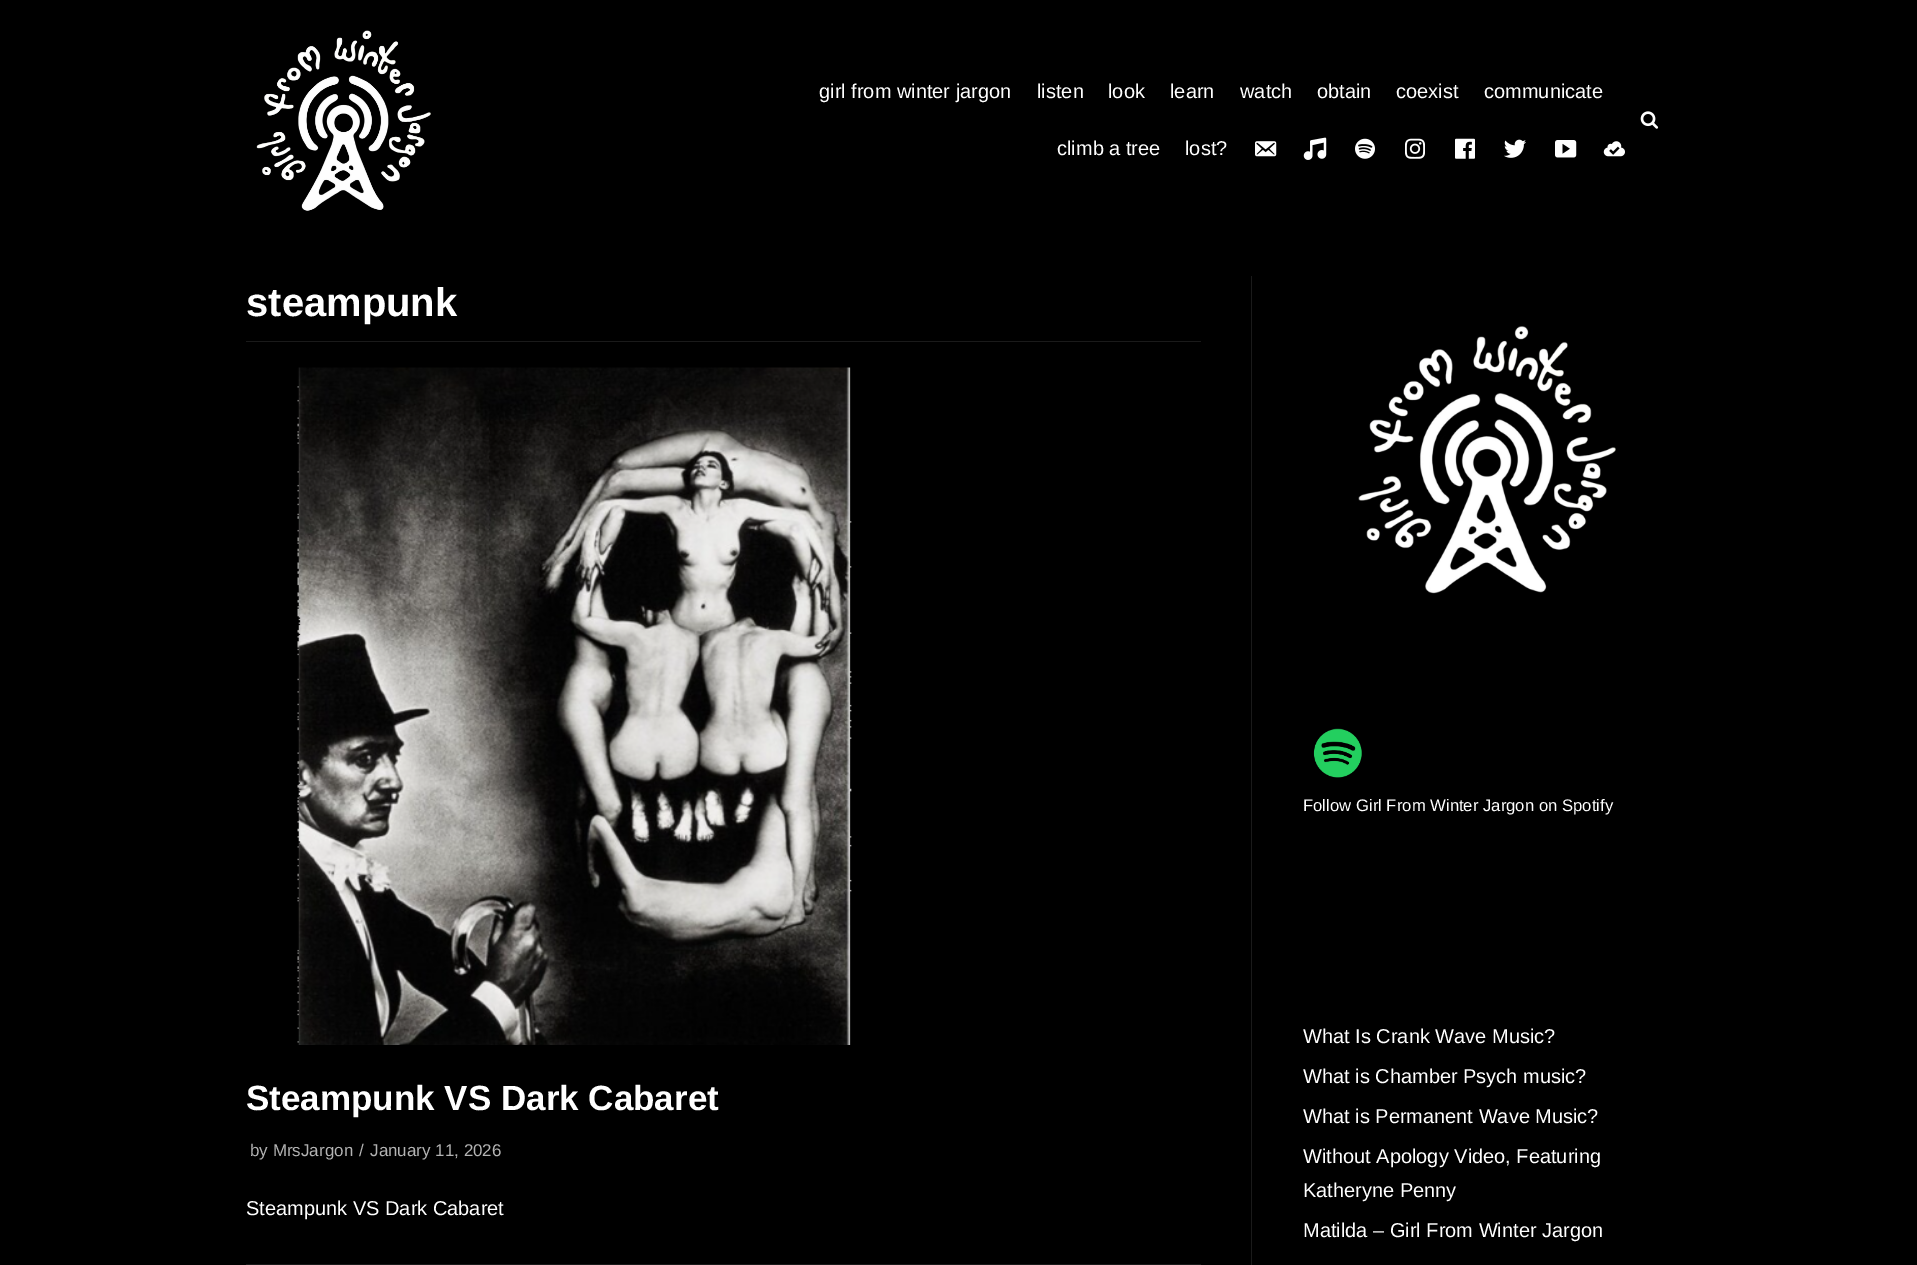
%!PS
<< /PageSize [1917 1265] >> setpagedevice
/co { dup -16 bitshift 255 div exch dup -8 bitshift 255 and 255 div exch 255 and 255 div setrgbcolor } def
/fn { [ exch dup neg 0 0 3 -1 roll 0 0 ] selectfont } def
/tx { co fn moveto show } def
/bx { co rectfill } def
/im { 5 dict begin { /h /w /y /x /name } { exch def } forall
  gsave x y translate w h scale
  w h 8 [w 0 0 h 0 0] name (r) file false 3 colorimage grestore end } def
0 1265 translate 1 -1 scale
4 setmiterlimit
0 0 1917 1265 16#000000 bx
(media/1.raw) 256 30 175 181 im
(media/2.raw) 1255 141 22 16 im
(media/3.raw) 1303 137 24 23 im
(media/4.raw) 1355 138 20 21 im
(media/5.raw) 1405 138 20 21 im
(media/6.raw) 1455 138 20 21 im
(media/7.raw) 1504 139 22 19 im
(media/8.raw) 1555 140 22 18 im
(media/9.raw) 1603 141 22 16 im
(media/10.raw) 1640 111 19 18 im
246 341 955 1 16#1A1A1A bx
246 1264 955 1 16#1A1A1A bx
(media/11.raw) 297 367 555 678 im
1251 276 1 989 16#1A1A1A bx
(media/12.raw) 1358 326 258 268 im
(media/13.raw) 1313 728 49 50 im
(girl from winter jargon) 819 98 /LiberationSans-Regular 20 16#FFFFFF tx
(listen) 1037 98 /LiberationSans-Regular 20 16#FFFFFF tx
(look) 1108 98 /LiberationSans-Regular 20 16#FFFFFF tx
(learn) 1170 98 /LiberationSans-Regular 20 16#FFFFFF tx
(watch) 1240 98 /LiberationSans-Regular 20 16#FFFFFF tx
(obtain) 1317 98 /LiberationSans-Regular 20 16#FFFFFF tx
(coexist) 1396 98 /LiberationSans-Regular 20 16#FFFFFF tx
(communicate) 1484 98 /LiberationSans-Regular 20 16#FFFFFF tx
(climb a tree) 1057 155 /LiberationSans-Regular 20 16#FFFFFF tx
(lost?) 1185 155 /LiberationSans-Regular 20 16#FFFFFF tx
(steampunk) 246 316 /LiberationSans-Bold 40 16#FFFFFF tx
(Steampunk VS Dark Cabaret) 246 1110 /LiberationSans-Bold 35 16#FFFFFF tx
(by MrsJargon) 250 1156 /LiberationSans-Regular 17 16#B3B3B3 tx
(/) 359 1156 /LiberationSans-Regular 17 16#B3B3B3 tx
(January 11, 2026) 370 1156 /LiberationSans-Regular 17 16#B3B3B3 tx
(Steampunk VS Dark Cabaret) 246 1215 /LiberationSans-Regular 20 16#FFFFFF tx
(Follow Girl From Winter Jargon on Spotify) 1303 811 /LiberationSans-Regular 16.7 16#FFFFFF tx
(What Is Crank Wave Music?) 1303 1043 /LiberationSans-Regular 20 16#FFFFFF tx
(What is Chamber Psych music?) 1303 1083 /LiberationSans-Regular 20 16#FFFFFF tx
(What is Permanent Wave Music?) 1303 1123 /LiberationSans-Regular 20 16#FFFFFF tx
(Without Apology Video, Featuring) 1303 1163 /LiberationSans-Regular 20 16#FFFFFF tx
(Katheryne Penny) 1303 1197 /LiberationSans-Regular 20 16#FFFFFF tx
(Matilda – Girl From Winter Jargon) 1303 1237 /LiberationSans-Regular 20 16#FFFFFF tx
showpage
